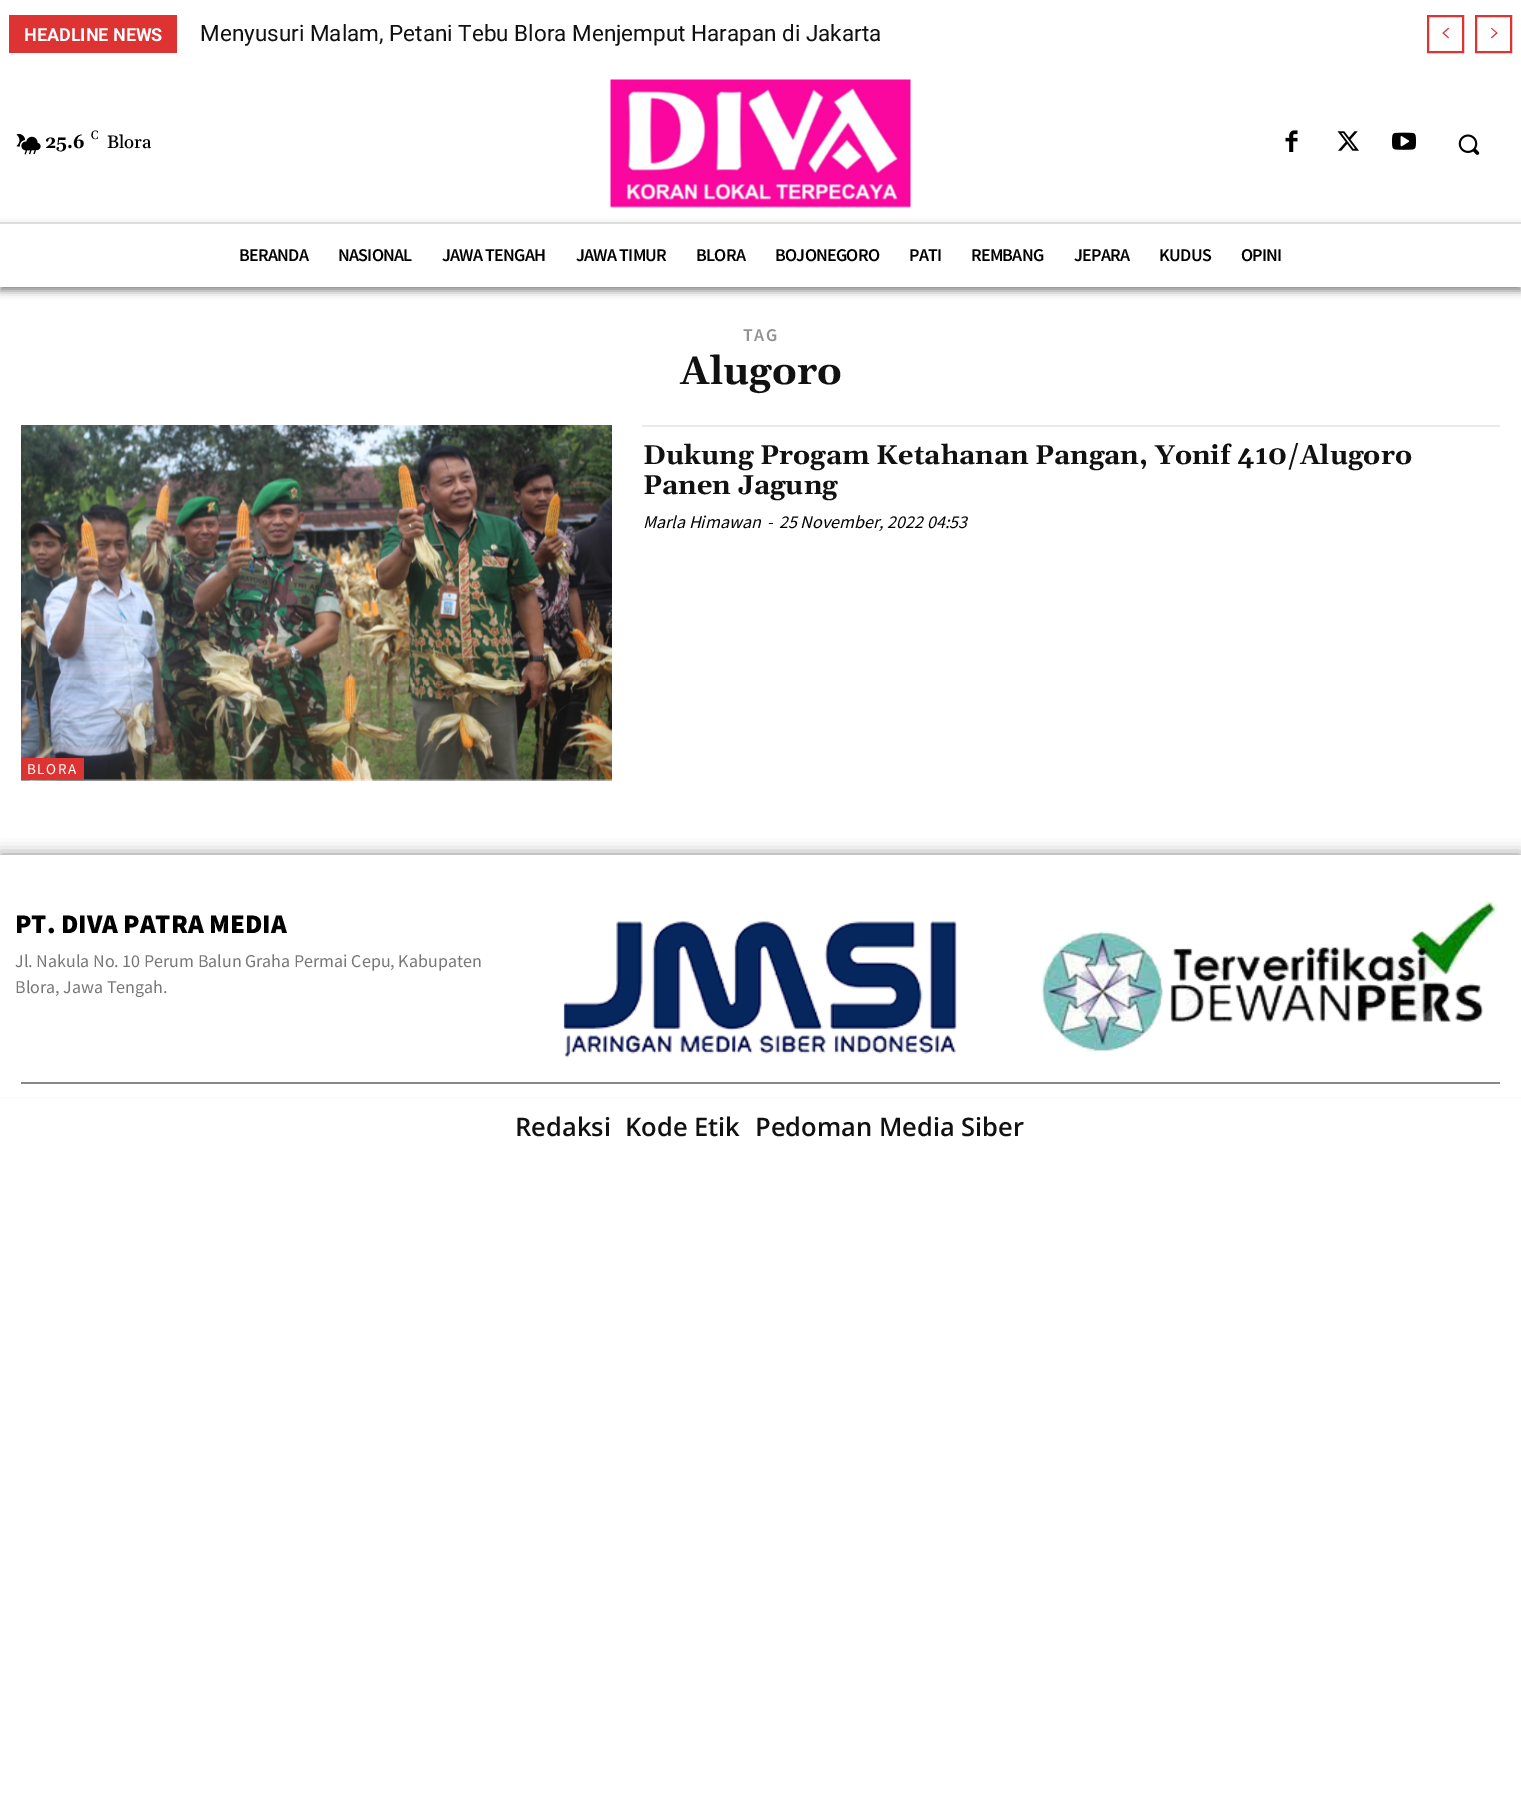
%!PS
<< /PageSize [1521 1820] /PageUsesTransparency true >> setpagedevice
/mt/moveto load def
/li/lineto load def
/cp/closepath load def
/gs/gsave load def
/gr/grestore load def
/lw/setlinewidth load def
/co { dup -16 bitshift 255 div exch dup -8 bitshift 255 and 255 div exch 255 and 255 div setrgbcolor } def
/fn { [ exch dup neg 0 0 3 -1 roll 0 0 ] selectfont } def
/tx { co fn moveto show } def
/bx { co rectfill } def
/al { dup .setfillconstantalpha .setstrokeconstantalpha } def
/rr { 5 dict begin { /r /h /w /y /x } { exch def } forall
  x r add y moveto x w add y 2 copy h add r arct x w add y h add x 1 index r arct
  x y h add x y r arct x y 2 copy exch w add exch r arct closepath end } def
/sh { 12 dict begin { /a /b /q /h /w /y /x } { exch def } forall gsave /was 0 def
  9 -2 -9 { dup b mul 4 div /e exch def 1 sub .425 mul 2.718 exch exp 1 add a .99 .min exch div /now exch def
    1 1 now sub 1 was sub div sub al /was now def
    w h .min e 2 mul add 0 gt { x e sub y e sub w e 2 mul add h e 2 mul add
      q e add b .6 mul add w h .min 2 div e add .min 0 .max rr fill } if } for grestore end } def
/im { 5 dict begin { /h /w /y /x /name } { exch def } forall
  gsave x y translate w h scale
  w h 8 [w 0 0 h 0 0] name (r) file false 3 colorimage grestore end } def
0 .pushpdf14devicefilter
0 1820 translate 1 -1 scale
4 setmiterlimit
0 0 1521 1820 16#FFFFFF bx
9 15 168 38 16#DD3333 bx
2 lw
1428 16 35 36 rectstroke
(media/1.raw) 1442 27 7 12 im
1476 16 35 36 rectstroke
(media/2.raw) 1491 27 7 12 im
(media/3.raw) 16 133 25 22 im
(media/4.raw) 610 79 301 129 im
(media/5.raw) 1285 130 13 22 im
(media/6.raw) 1337 131 22 20 im
(media/7.raw) 1392 132 24 18 im
(media/8.raw) 1458 134 22 21 im
gs
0 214 mt 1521 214 li 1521 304 li 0 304 li cp 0 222 mt 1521 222 li 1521 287 li 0 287 li cp eoclip newpath
16#888888 co
0 227 1521 64 0 4 1 sh
gr
0 222 1521 2 16#DDDDDD bx
642 425 858 2 16#EAEAEA bx
(media/9.raw) 21 425 591 356 im
21 758 63 22 16#DD3333 bx
16#888888 co
0 855 1521 227 0 7.5 1 sh
0 855 1521 242 16#FFFFFF bx
(media/10.raw) 563 920 394 138 im
(media/11.raw) 1041 900 457 152 im
21 1082 1479 2 16#888888 bx
(HEADLINE NEWS) 24 41 /Roboto-Bold 18 16#FFFFFF tx
(Menyusuri Malam, Petani Tebu Blora Menjemput Harapan di Jakarta) 200 41 /Roboto-Regular 22.5 16#111111 tx
(25.6) 45 148 /Gelasio-Bold 18 16#000000 tx
(C) 91 139 /Gelasio-Regular 12 16#000000 tx
(Blora) 107 148 /Gelasio-Medium 18 16#000000 tx
/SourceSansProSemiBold-SemiBold 18 fn
239 261 mt -.75 0 (BERANDA) ashow
338 261 mt -.75 0 (NASIONAL) ashow
442 261 mt -.75 0 (JAWA TENGAH) ashow
576 261 mt -.75 0 (JAWA TIMUR) ashow
696 261 mt -.75 0 (BLORA) ashow
775 261 mt -.75 0 (BOJONEGORO) ashow
909 261 mt -.75 0 (PATI) ashow
971 261 mt -.75 0 (REMBANG) ashow
1074 261 mt -.75 0 (JEPARA) ashow
1159 261 mt -.75 0 (KUDUS) ashow
1241 261 mt -.75 0 (OPINI) ashow
16#919191 co
743 341 mt 1.5 0 (TAG) ashow
(Alugoro) 680 384 /Gelasio-Bold 39 16#111111 tx
(Dukung Progam Ketahanan Pangan, Yonif 410/Alugoro) 643 464 /Gelasio-Bold 27 16#111111 tx
(Panen Jagung) 643 494 /Gelasio-Bold 27 16#111111 tx
(Marla Himawan) 643 528 /SourceSansPro-Italic 18 16#000000 tx
(-) 767 528 /SourceSansPro-Italic 18 16#000000 tx
(25 November, 2022 04:53) 779 528 /SourceSansPro-Italic 18 16#000000 tx
/SourceSansPro-Regular 15 fn
16#FFFFFF co
27 774 mt 1.5 0 (BLORA) ashow
(PT. DIVA PATRA MEDIA) 15 933 /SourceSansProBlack-Black 27 16#000000 tx
(Jl. Nakula No. 10 Perum Balun Graha Permai Cepu, Kabupaten) 15 967 /SourceSansPro-Regular 18 16#777777 tx
(Blora, Jawa Tengah.) 15 993 /SourceSansPro-Regular 18 16#777777 tx
(Redaksi) 515 1136 /OpenSans-SemiBold 25.5 16#111111 tx
(Kode Etik) 625 1136 /OpenSans-SemiBold 25.5 16#111111 tx
(Pedoman Media Siber) 755 1136 /OpenSans-SemiBold 25.5 16#111111 tx
.poppdf14devicefilter showpage
